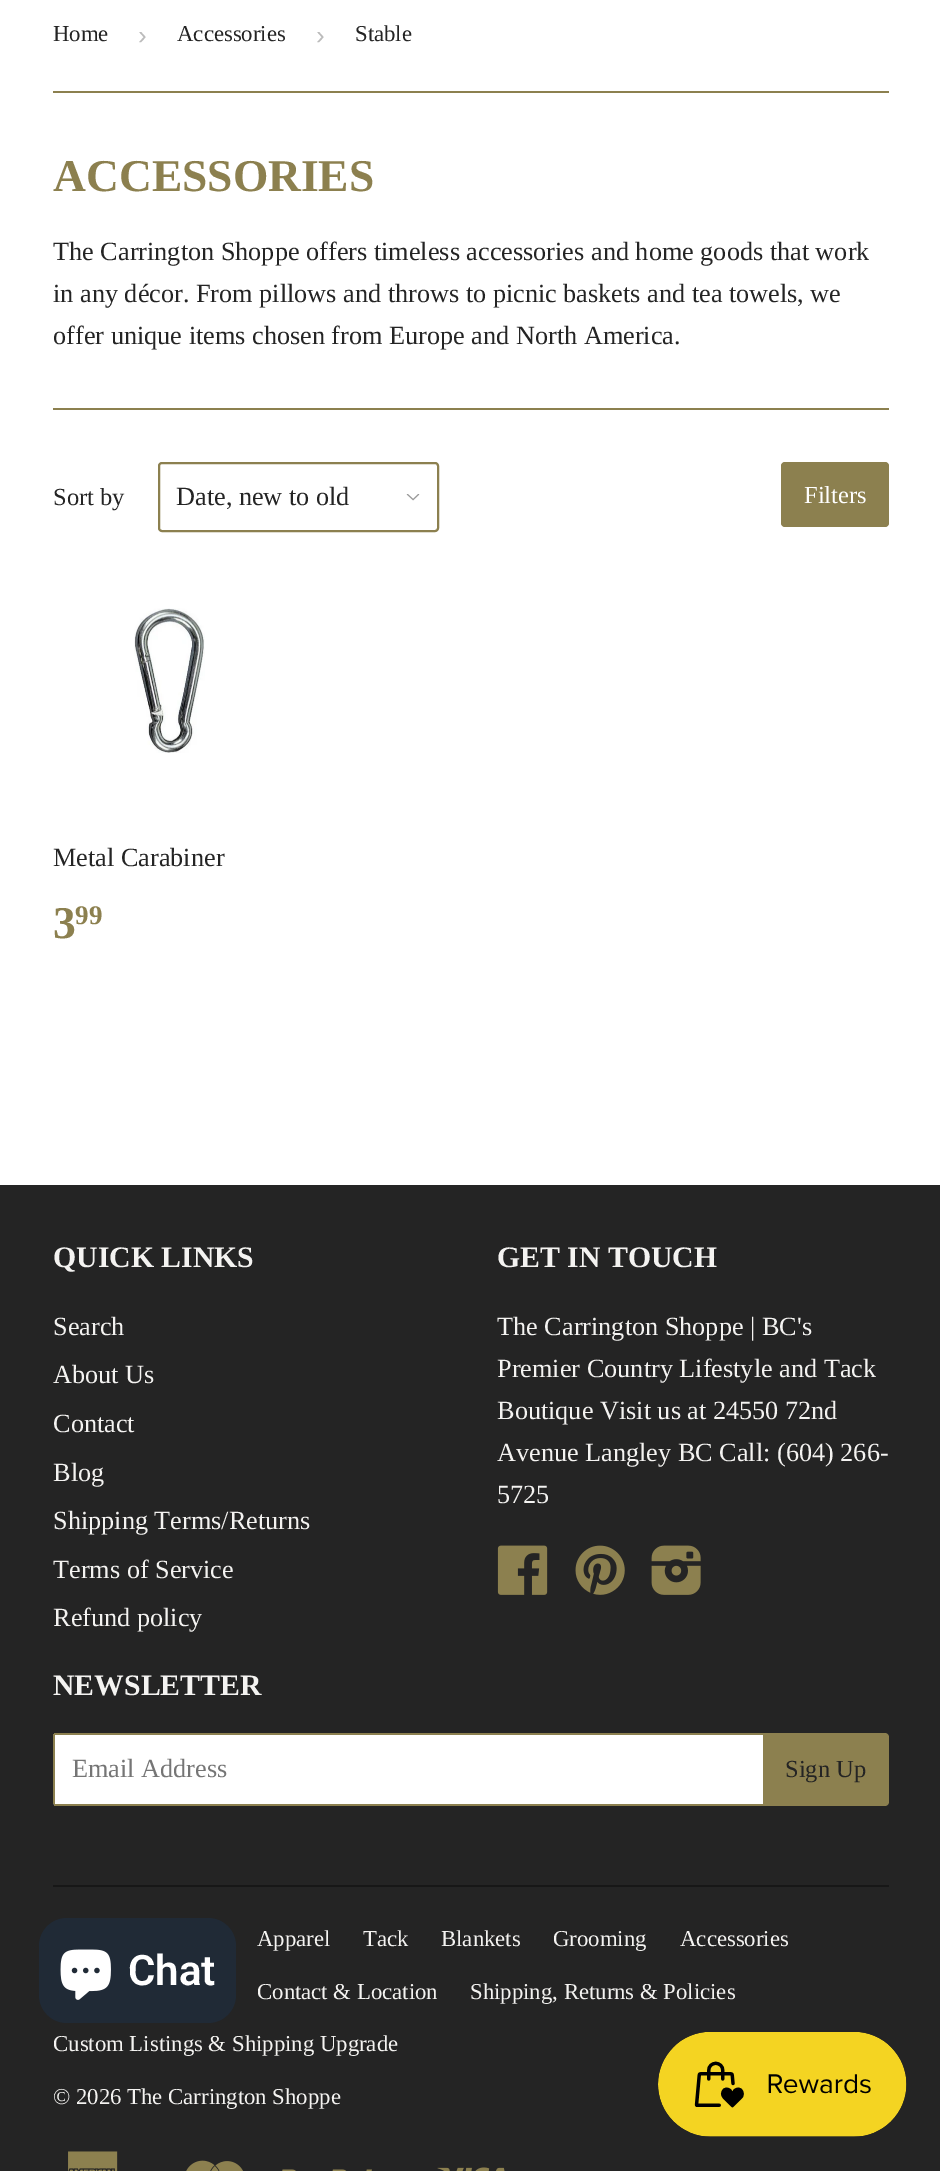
%!PS
<< /PageSize [940 2171] >> setpagedevice
/mt/moveto load def
/li/lineto load def
/ct/curveto load def
/cp/closepath load def
/fl/fill load def
/st/stroke load def
/lw/setlinewidth load def
/co { dup -16 bitshift 255 div exch dup -8 bitshift 255 and 255 div exch 255 and 255 div setrgbcolor } def
/fn { [ exch dup neg 0 0 3 -1 roll 0 0 ] selectfont } def
/tx { co fn moveto show } def
/bx { co rectfill } def
/rr { 5 dict begin { /r /h /w /y /x } { exch def } forall
  x r add y moveto x w add y 2 copy h add r arct x w add y h add x 1 index r arct
  x y h add x y r arct x y 2 copy exch w add exch r arct closepath end } def
/im { 5 dict begin { /h /w /y /x /name } { exch def } forall
  gsave x y translate w h scale
  w h 8 [w 0 0 h 0 0] name (r) file false 3 colorimage grestore end } def
0 2171 translate 1 -1 scale
4 setmiterlimit
0 0 940 2171 16#FFFFFF bx
53 91 836 2 16#8C804F bx
53 408 836 2 16#8C804F bx
(media/1.raw) 406 494 14 7 im
2 lw
159 463 279 68 3 rr st
781 462 108 65 4 rr fl
(media/2.raw) 134 608 71 145 im
0 1185 940 986 16#242424 bx
(media/3.raw) 497 1545 51 50 im
(media/4.raw) 575 1545 50 50 im
(media/5.raw) 651 1545 50 50 im
16#FFFFFF co
57 1733 mt 763 1733 li 763 1806 li 57 1806 li 55 1806 53 1804 53 1802 ct 53 1737 li 53 1735 55 1733 57 1733 ct cp fl
54 1733 709 2 16#8C804F bx
54 1804 709 2 16#8C804F bx
53 1734 2 70 16#8C804F bx
763 1733 mt 885 1733 li 887 1733 889 1735 889 1737 ct 889 1802 li 889 1804 887 1806 885 1806 ct 763 1806 li cp fl
53 1885 836 2 16#171717 bx
(media/6.raw) 68 2151 50 20 im
(media/7.raw) 186 2160 57 11 im
(media/8.raw) 282 2169 90 2 im
(media/9.raw) 437 2167 68 4 im
16#202A36 co
39 1918 197 105 28 rr fl
(media/10.raw) 60 1949 51 51 im
(media/11.raw) 658 2032 249 105 im
(Home) 53 41 /LiberationSerif-Regular 22.75 16#242424 tx
(›) 138 44 /LiberationSans-Regular 26.25 16#BBBBBB tx
(Accessories) 177 41 /LiberationSerif-Regular 22.75 16#242424 tx
(›) 316 44 /LiberationSans-Regular 26.25 16#BBBBBB tx
(Stable) 355 41 /LiberationSerif-Regular 22.75 16#242424 tx
(ACCESSORIES) 53 191 /LiberationSerif-Bold 45.5 16#8C804F tx
(The Carrington Shoppe offers timeless accessories and home goods that work) 53 260 /LiberationSerif-Regular 26.25 16#242424 tx
(in any décor. From pillows and throws to picnic baskets and tea towels, we) 53 302 /LiberationSerif-Regular 26.25 16#242424 tx
(offer unique items chosen from Europe and North America.) 53 344 /LiberationSerif-Regular 26.25 16#242424 tx
(Sort by) 53 505 /LiberationSerif-Regular 24.5 16#242424 tx
(Date, new to old) 176 505 /LiberationSerif-Regular 26.25 16#242424 tx
(Filters) 804 503 /LiberationSerif-Regular 24.5 16#FFFFFF tx
(Metal Carabiner) 53 866 /LiberationSerif-Regular 26.25 16#242424 tx
(3) 53 938 /LiberationSerif-Bold 45.5 16#8C804F tx
(99) 75 924 /LiberationSerif-Bold 27 16#8C804F tx
(QUICK LINKS) 53 1267 /LiberationSerif-Bold 29.75 16#F4F3F1 tx
(Search) 53 1335 /LiberationSerif-Regular 26.25 16#F4F3F1 tx
(About Us) 53 1383 /LiberationSerif-Regular 26.25 16#F4F3F1 tx
(Contact) 53 1432 /LiberationSerif-Regular 26.25 16#F4F3F1 tx
(Blog) 53 1481 /LiberationSerif-Regular 26.25 16#F4F3F1 tx
(Shipping Terms/Returns) 53 1529 /LiberationSerif-Regular 26.25 16#F4F3F1 tx
(Terms of Service) 53 1578 /LiberationSerif-Regular 26.25 16#F4F3F1 tx
(Refund policy) 53 1626 /LiberationSerif-Regular 26.25 16#F4F3F1 tx
(GET IN TOUCH) 497 1267 /LiberationSerif-Bold 29.75 16#F4F3F1 tx
(The Carrington Shoppe | BC's) 497 1335 /LiberationSerif-Regular 26.25 16#F4F3F1 tx
(Premier Country Lifestyle and Tack) 497 1377 /LiberationSerif-Regular 26.25 16#F4F3F1 tx
(Boutique Visit us at 24550 72nd) 497 1419 /LiberationSerif-Regular 26.25 16#F4F3F1 tx
(Avenue Langley BC Call: \(604\) 266-) 497 1461 /LiberationSerif-Regular 26.25 16#F4F3F1 tx
(5725) 497 1503 /LiberationSerif-Regular 26.25 16#F4F3F1 tx
(NEWSLETTER) 53 1695 /LiberationSerif-Bold 29.75 16#F4F3F1 tx
(Email Address) 72 1777 /LiberationSerif-Regular 26.25 16#757575 tx
(Sign Up) 785 1777 /LiberationSerif-Regular 24.5 16#242424 tx
(Apparel) 257 1946 /LiberationSerif-Regular 22.75 16#F4F3F1 tx
(Tack) 363 1946 /LiberationSerif-Regular 22.75 16#F4F3F1 tx
(Blankets) 441 1946 /LiberationSerif-Regular 22.75 16#F4F3F1 tx
(Grooming) 553 1946 /LiberationSerif-Regular 22.75 16#F4F3F1 tx
(Accessories) 680 1946 /LiberationSerif-Regular 22.75 16#F4F3F1 tx
(Contact & Location) 257 1999 /LiberationSerif-Regular 22.75 16#F4F3F1 tx
(Shipping, Returns & Policies) 470 1999 /LiberationSerif-Regular 22.75 16#F4F3F1 tx
(Custom Listings & Shipping Upgrade) 53 2051 /LiberationSerif-Regular 22.75 16#F4F3F1 tx
(© 2026 The Carrington Shoppe) 53 2104 /LiberationSerif-Regular 22.75 16#F4F3F1 tx
(Chat) 128 1985 /Roboto-SemiBold 42 16#FFFFFF tx
showpage
